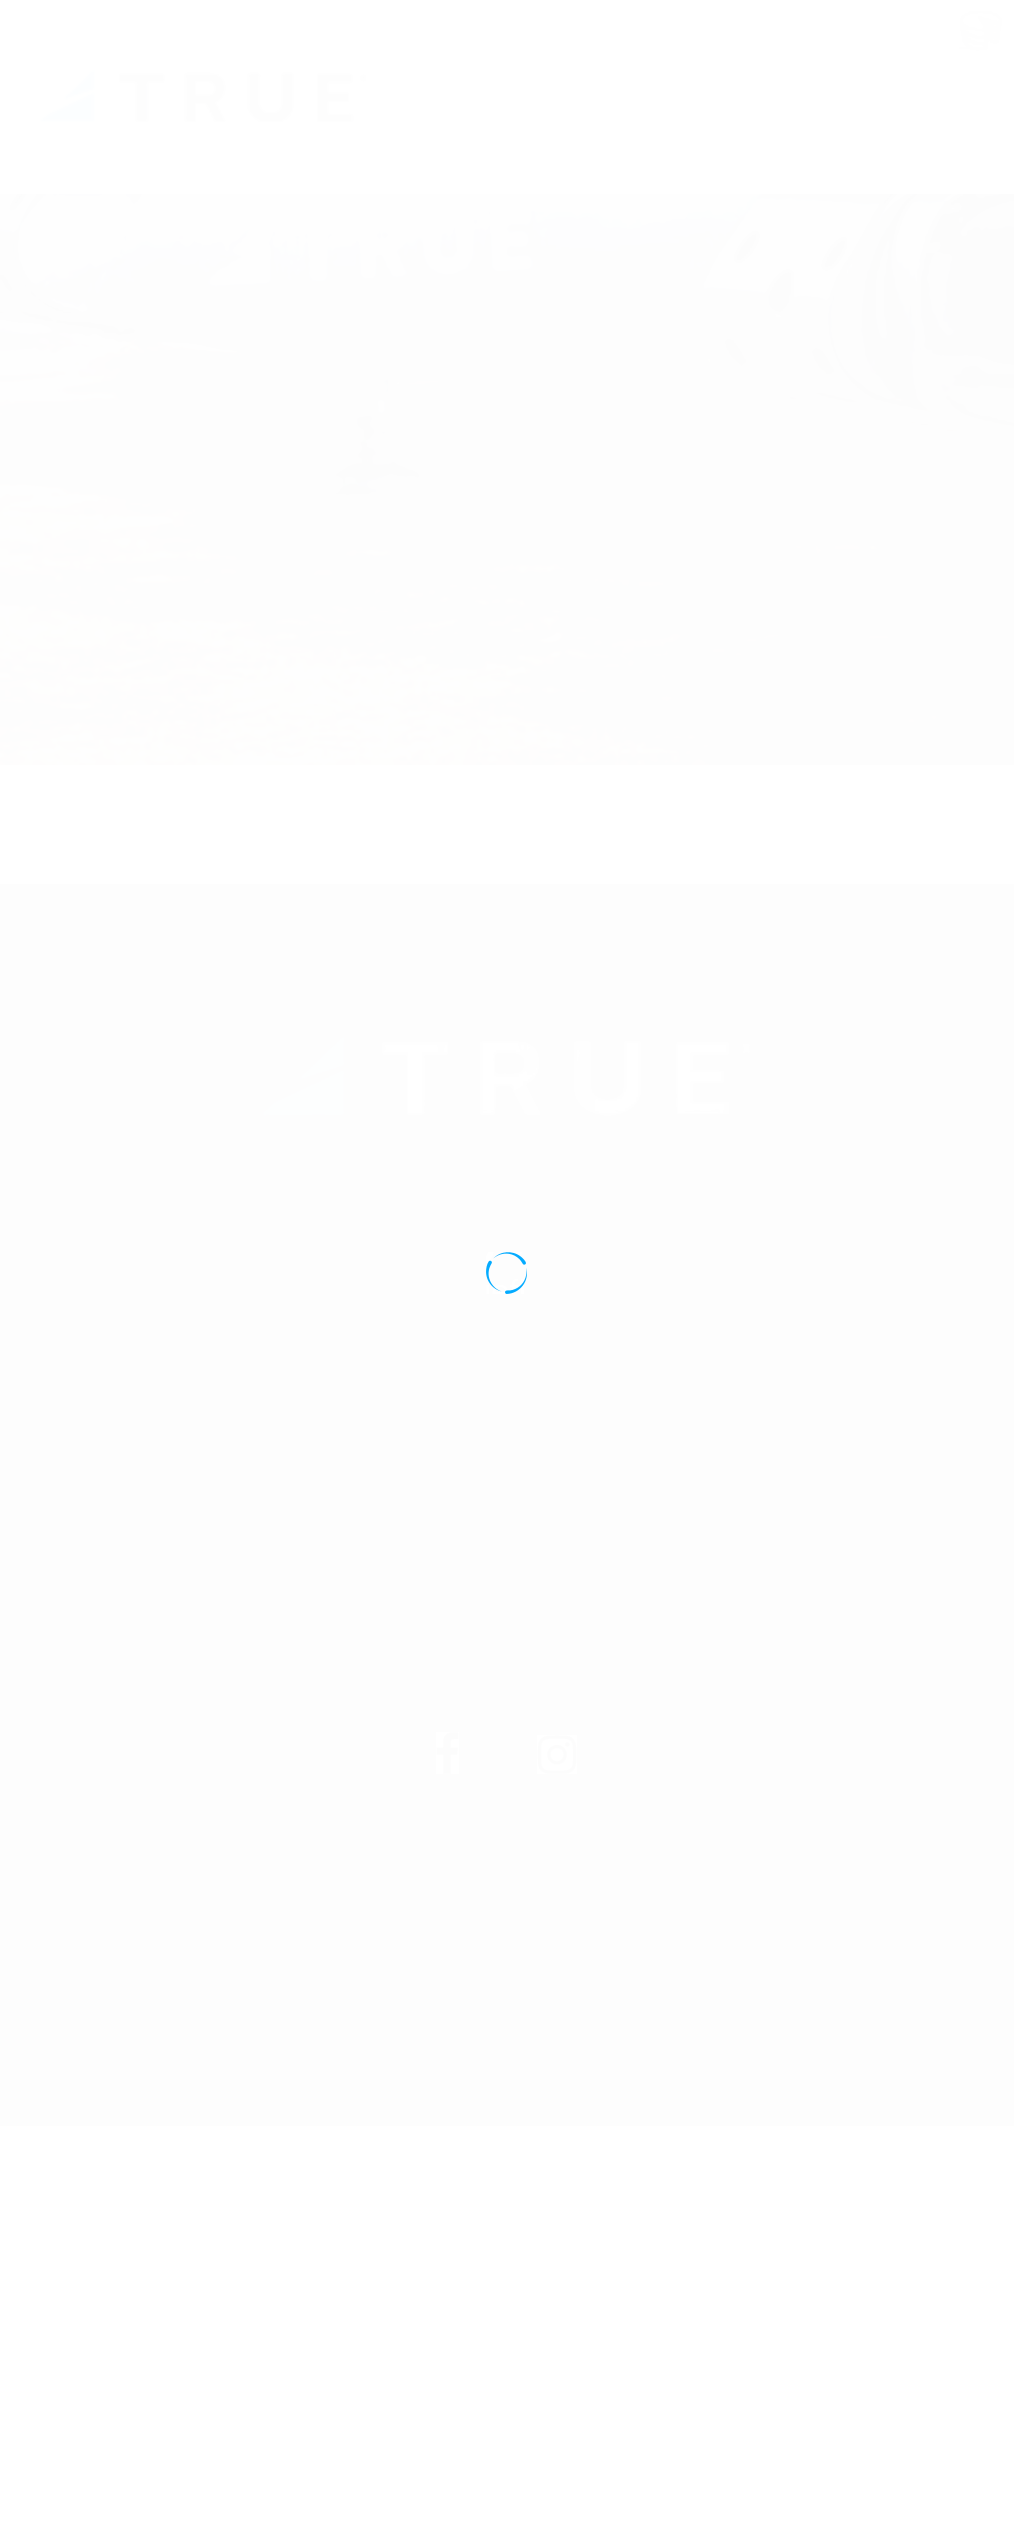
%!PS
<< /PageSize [1014 2542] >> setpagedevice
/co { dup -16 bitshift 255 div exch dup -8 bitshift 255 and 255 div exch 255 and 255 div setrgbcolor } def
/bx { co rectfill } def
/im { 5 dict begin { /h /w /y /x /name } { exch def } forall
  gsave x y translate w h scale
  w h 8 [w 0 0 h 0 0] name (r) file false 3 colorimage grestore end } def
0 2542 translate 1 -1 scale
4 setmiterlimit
0 0 1014 2542 16#FFFFFF bx
(media/1.raw) 959 10 44 41 im
(media/2.raw) 40 69 328 54 im
(media/3.raw) 0 194 1014 571 im
(media/4.raw) 0 884 1014 1243 im
(media/5.raw) 260 1035 492 82 im
(media/6.raw) 436 1732 23 42 im
(media/7.raw) 537 1735 40 39 im
(media/8.raw) 486 1252 41 42 im
showpage
